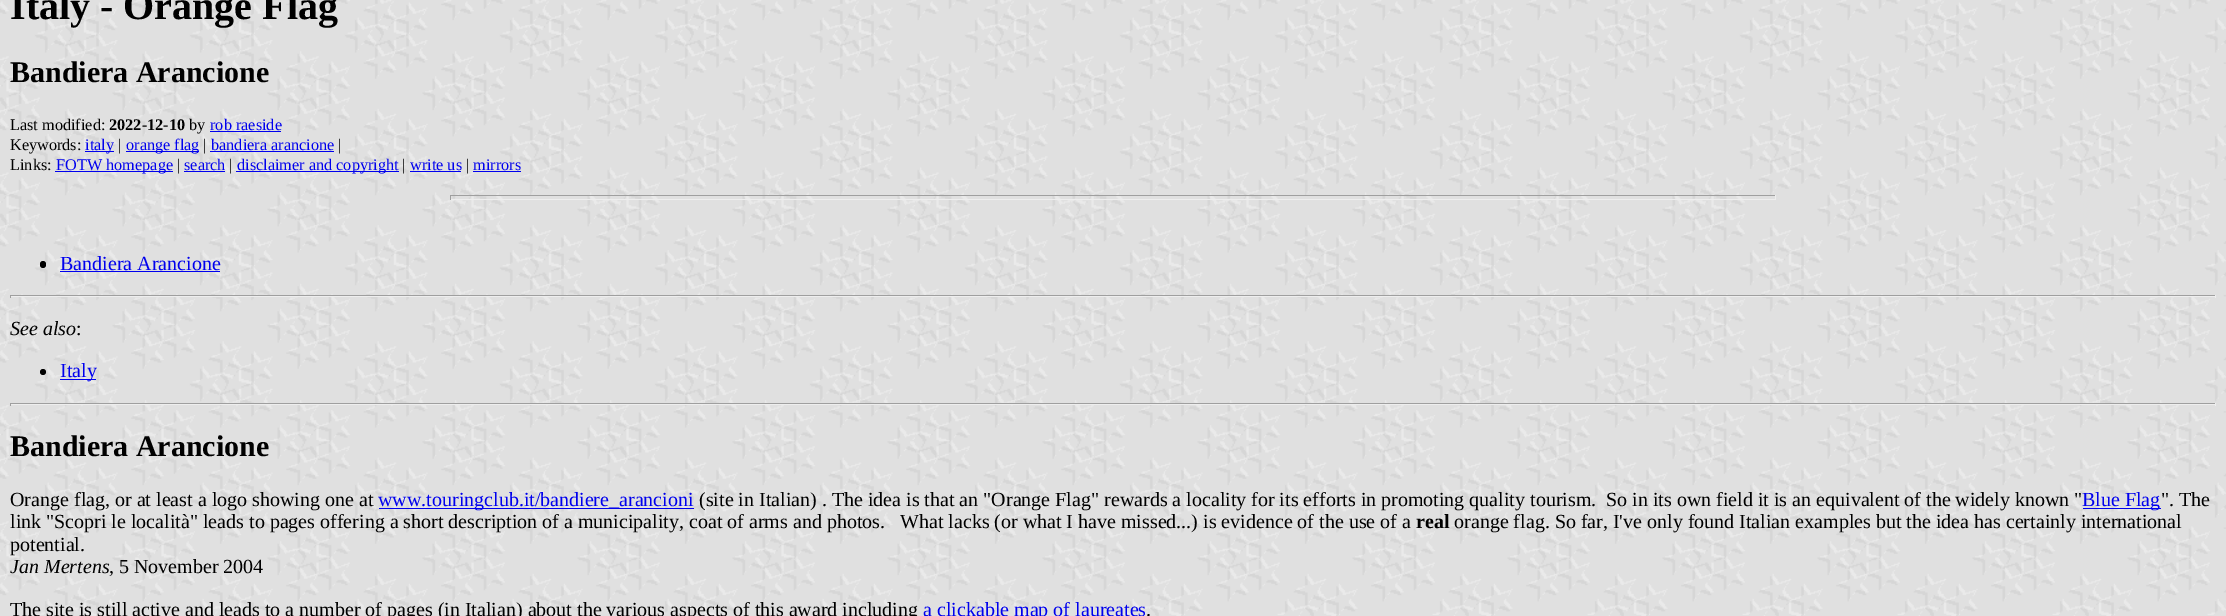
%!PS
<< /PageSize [2226 616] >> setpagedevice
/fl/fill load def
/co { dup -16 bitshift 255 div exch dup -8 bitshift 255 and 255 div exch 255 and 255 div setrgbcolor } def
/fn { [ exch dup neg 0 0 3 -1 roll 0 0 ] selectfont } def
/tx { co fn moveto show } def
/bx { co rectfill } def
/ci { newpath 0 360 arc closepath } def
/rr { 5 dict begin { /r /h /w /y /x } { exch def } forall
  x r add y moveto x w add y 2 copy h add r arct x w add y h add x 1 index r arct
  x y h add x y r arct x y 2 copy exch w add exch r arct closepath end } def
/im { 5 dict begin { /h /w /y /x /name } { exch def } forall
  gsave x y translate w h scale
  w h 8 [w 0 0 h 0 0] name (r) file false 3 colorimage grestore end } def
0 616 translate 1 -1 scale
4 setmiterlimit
0 0 2226 616 16#FFFFFF bx
(media/1.raw) 0 0 2226 616 im
210 131 71 1 16#0000EE bx
85 151 29 1 16#0000EE bx
126 151 73 1 16#0000EE bx
210 151 124 1 16#0000EE bx
55 171 118 1 16#0000EE bx
184 171 41 1 16#0000EE bx
236 171 163 1 16#0000EE bx
410 171 51 1 16#0000EE bx
473 171 48 1 16#0000EE bx
450 195 1326 1 16#9F9F9F bx
1775 195 1 5 16#EEEEEE bx
450 199 1326 1 16#EEEEEE bx
450 195 1 5 16#9F9F9F bx
16#000000 co
40 261 6 7 3 rr fl
60 271 160 1 16#0000EE bx
10 295 2206 1 16#9F9F9F bx
2215 295 1 3 16#EEEEEE bx
10 296 2206 1 16#EEEEEE bx
10 295 1 3 16#9F9F9F bx
16#000000 co
43 372 3 ci fl
60 379 36 1 16#0000EE bx
10 403 2206 1 16#9F9F9F bx
2215 403 1 3 16#EEEEEE bx
10 404 2206 1 16#EEEEEE bx
10 403 1 3 16#9F9F9F bx
379 508 315 1 16#0000EE bx
2083 508 78 1 16#0000EE bx
(Italy - Orange Flag) 10 19 /LiberationSerif-Bold 40 16#000000 tx
(Bandiera Arancione) 10 82 /LiberationSerif-Bold 30 16#000000 tx
(Last modified:) 10 130 /LiberationSerif-Regular 16.25 16#000000 tx
(2022-12-10) 109 130 /LiberationSerif-Bold 16.25 16#000000 tx
(by) 189 130 /LiberationSerif-Regular 16.25 16#000000 tx
(rob raeside) 210 130 /LiberationSerif-Regular 16.25 16#0000EE tx
(Keywords:) 10 150 /LiberationSerif-Regular 16.25 16#000000 tx
(italy) 85 150 /LiberationSerif-Regular 16.25 16#0000EE tx
(|) 118 150 /LiberationSerif-Regular 16.25 16#000000 tx
(orange flag) 126 150 /LiberationSerif-Regular 16.25 16#0000EE tx
(|) 203 150 /LiberationSerif-Regular 16.25 16#000000 tx
(bandiera arancione) 211 150 /LiberationSerif-Regular 16.25 16#0000EE tx
(|) 338 150 /LiberationSerif-Regular 16.25 16#000000 tx
(Links:) 10 170 /LiberationSerif-Regular 16.25 16#000000 tx
(FOTW homepage) 56 170 /LiberationSerif-Regular 16.25 16#0000EE tx
(|) 177 170 /LiberationSerif-Regular 16.25 16#000000 tx
(search) 184 170 /LiberationSerif-Regular 16.25 16#0000EE tx
(|) 229 170 /LiberationSerif-Regular 16.25 16#000000 tx
(disclaimer and copyright) 237 170 /LiberationSerif-Regular 16.25 16#0000EE tx
(|) 402 170 /LiberationSerif-Regular 16.25 16#000000 tx
(write us) 410 170 /LiberationSerif-Regular 16.25 16#0000EE tx
(|) 466 170 /LiberationSerif-Regular 16.25 16#000000 tx
(mirrors) 473 170 /LiberationSerif-Regular 16.25 16#0000EE tx
(Bandiera Arancione) 60 270 /LiberationSerif-Regular 20 16#0000EE tx
(See also) 10 335 /LiberationSerif-Italic 20 16#000000 tx
(:) 76 335 /LiberationSerif-Regular 20 16#000000 tx
(Italy) 60 377 /LiberationSerif-Regular 20 16#0000EE tx
(Bandiera Arancione) 10 456 /LiberationSerif-Bold 30 16#000000 tx
(Orange flag, or at least a logo showing one at) 10 506 /LiberationSerif-Regular 20 16#000000 tx
(www.touringclub.it/bandiere_arancioni) 378 506 /LiberationSerif-Regular 20 16#0000EE tx
(\(site in Italian\) . The idea is that an "Orange Flag" rewards a locality for its efforts in promoting quality tourism.  So in its own field it is an equivalent of the widely known ") 699 506 /LiberationSerif-Regular 20 16#000000 tx
(Blue Flag) 2082 506 /LiberationSerif-Regular 20 16#0000EE tx
(". The) 2161 506 /LiberationSerif-Regular 20 16#000000 tx
(link "Scopri le località" leads to pages offering a short description of a municipality, coat of arms and photos.   What lacks \(or what I have missed...\) is evidence of the use of a) 10 528 /LiberationSerif-Regular 20 16#000000 tx
(real) 1416 528 /LiberationSerif-Bold 20 16#000000 tx
(orange flag. So far, I've only found Italian examples but the idea has certainly international) 1454 528 /LiberationSerif-Regular 20 16#000000 tx
(potential.) 10 551 /LiberationSerif-Regular 20 16#000000 tx
(Jan Mertens) 10 573 /LiberationSerif-Italic 20 16#000000 tx
(, 5 November 2004) 109 573 /LiberationSerif-Regular 20 16#000000 tx
(The site is still active and leads to a number of pages \(in Italian\) about the various aspects of this award including) 10 616 /LiberationSerif-Regular 20 16#000000 tx
(a clickable map of laureates) 923 616 /LiberationSerif-Regular 20 16#0000EE tx
(.) 1146 616 /LiberationSerif-Regular 20 16#000000 tx
showpage
